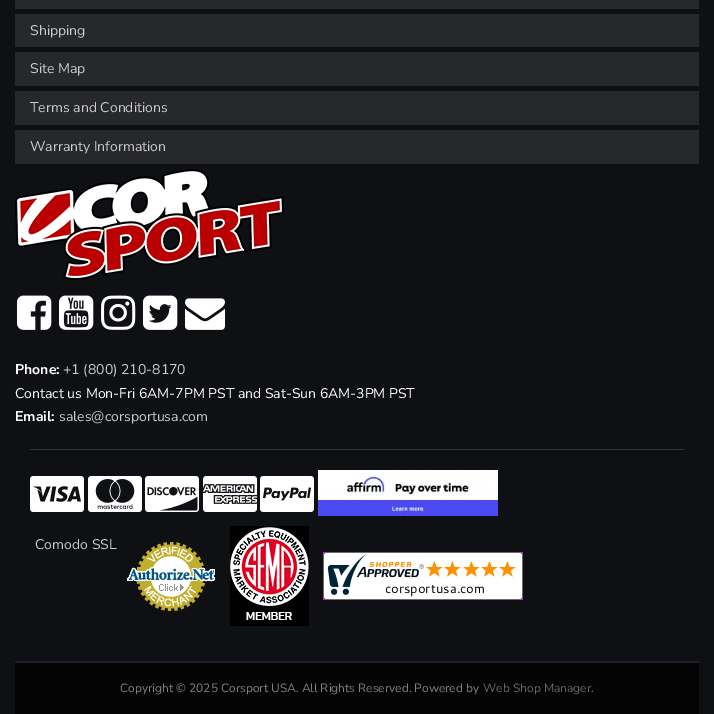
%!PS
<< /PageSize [714 714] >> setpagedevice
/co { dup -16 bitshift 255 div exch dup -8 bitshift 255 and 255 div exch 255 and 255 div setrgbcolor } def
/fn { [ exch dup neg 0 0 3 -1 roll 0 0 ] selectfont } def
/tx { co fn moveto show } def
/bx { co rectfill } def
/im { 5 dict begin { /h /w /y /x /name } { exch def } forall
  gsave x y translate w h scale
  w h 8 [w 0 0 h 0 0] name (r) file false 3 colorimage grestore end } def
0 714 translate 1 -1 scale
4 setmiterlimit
0 0 714 714 16#0F1014 bx
15 0 684 9 16#27282C bx
15 14 684 33 16#27282C bx
15 52 684 34 16#27282C bx
15 91 684 34 16#27282C bx
15 130 684 34 16#27282C bx
(media/1.raw) 15 169 269 111 im
(media/2.raw) 17 295 35 35 im
(media/3.raw) 59 295 35 35 im
(media/4.raw) 101 295 35 35 im
(media/5.raw) 143 295 35 35 im
(media/6.raw) 185 298 40 32 im
30 449 654 1 16#333333 bx
(media/7.raw) 30 476 54 36 im
(media/8.raw) 88 476 54 36 im
(media/9.raw) 145 476 54 36 im
(media/10.raw) 203 476 54 36 im
(media/11.raw) 260 476 54 36 im
(media/12.raw) 318 470 180 46 im
(media/13.raw) 127 542 88 69 im
(media/14.raw) 230 526 79 100 im
(media/15.raw) 323 552 200 48 im
15 663 684 51 16#040405 bx
15 661 684 2 16#1F2124 bx
(Shipping) 30 35 /NunitoSans-Regular 14 16#CCCCCC tx
(Site Map) 30 73 /NunitoSans-Regular 14 16#CCCCCC tx
(Terms and Conditions) 30 112 /NunitoSans-Regular 14 16#CCCCCC tx
(Warranty Information) 30 151 /NunitoSans-Regular 14 16#CCCCCC tx
(Phone:) 15 374 /NunitoSans-Bold 14 16#FFFFFF tx
(+1 \(800\) 210-8170) 63 374 /NunitoSans-Regular 14 16#CCCCCC tx
(Contact us Mon-Fri 6AM-7PM PST and Sat-Sun 6AM-3PM PST) 15 398 /NunitoSans-Regular 14 16#FFFFFF tx
(Email:) 15 421 /NunitoSans-Bold 14 16#FFFFFF tx
(sales@corsportusa.com) 59 421 /NunitoSans-Regular 14 16#CCCCCC tx
(Comodo SSL) 35 549 /NunitoSans-Regular 14 16#CCCCCC tx
(Copyright © 2025 Corsport USA. All Rights Reserved. Powered by) 120 692 /NunitoSans-Regular 12 16#828282 tx
(Web Shop Manager) 483 692 /NunitoSans-Regular 12 16#686869 tx
(.) 591 692 /NunitoSans-Regular 12 16#828282 tx
showpage
